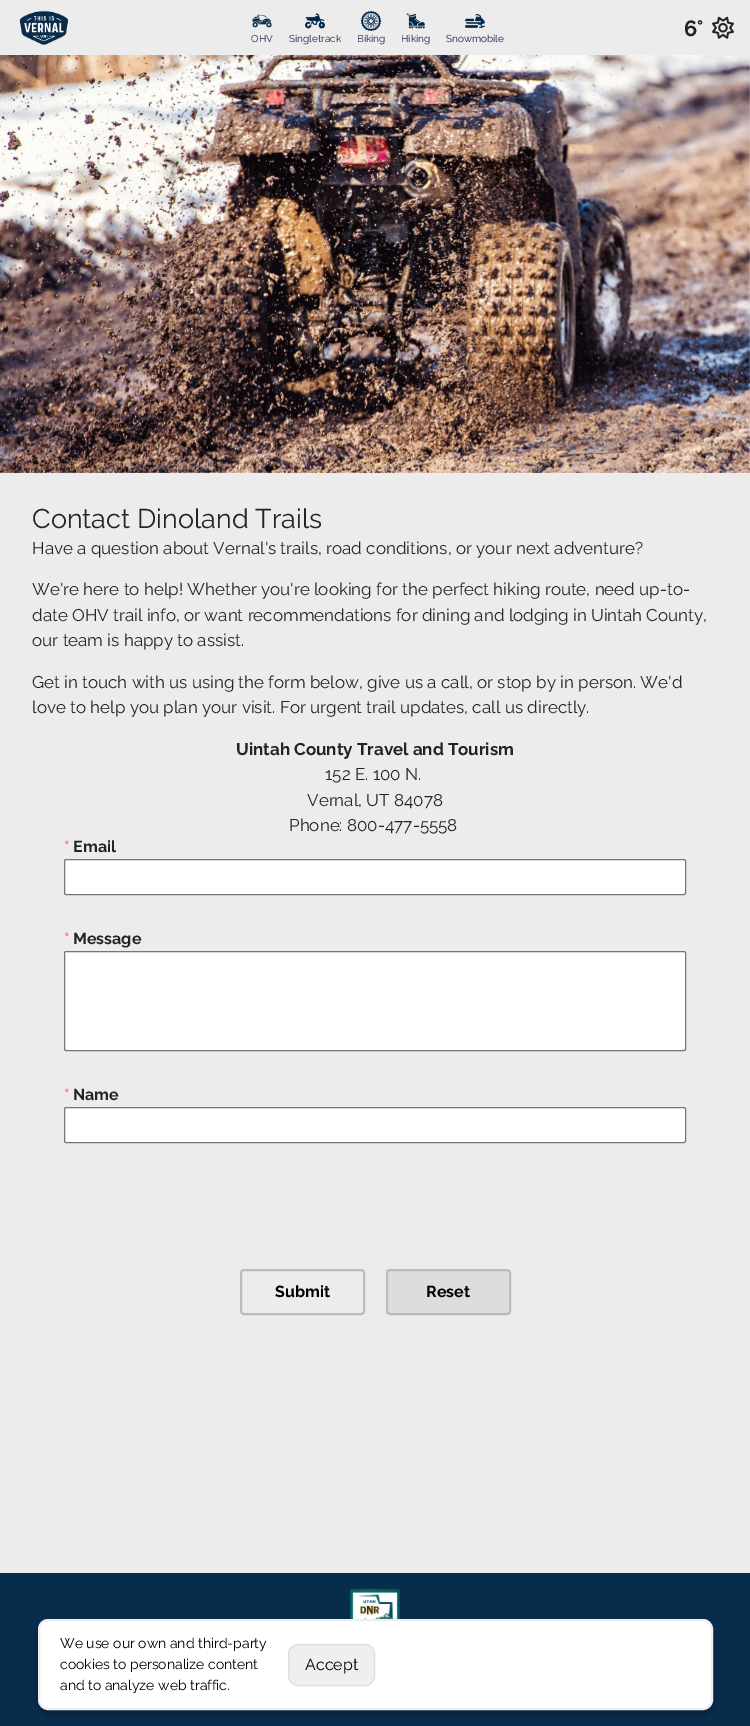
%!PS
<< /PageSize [750 1726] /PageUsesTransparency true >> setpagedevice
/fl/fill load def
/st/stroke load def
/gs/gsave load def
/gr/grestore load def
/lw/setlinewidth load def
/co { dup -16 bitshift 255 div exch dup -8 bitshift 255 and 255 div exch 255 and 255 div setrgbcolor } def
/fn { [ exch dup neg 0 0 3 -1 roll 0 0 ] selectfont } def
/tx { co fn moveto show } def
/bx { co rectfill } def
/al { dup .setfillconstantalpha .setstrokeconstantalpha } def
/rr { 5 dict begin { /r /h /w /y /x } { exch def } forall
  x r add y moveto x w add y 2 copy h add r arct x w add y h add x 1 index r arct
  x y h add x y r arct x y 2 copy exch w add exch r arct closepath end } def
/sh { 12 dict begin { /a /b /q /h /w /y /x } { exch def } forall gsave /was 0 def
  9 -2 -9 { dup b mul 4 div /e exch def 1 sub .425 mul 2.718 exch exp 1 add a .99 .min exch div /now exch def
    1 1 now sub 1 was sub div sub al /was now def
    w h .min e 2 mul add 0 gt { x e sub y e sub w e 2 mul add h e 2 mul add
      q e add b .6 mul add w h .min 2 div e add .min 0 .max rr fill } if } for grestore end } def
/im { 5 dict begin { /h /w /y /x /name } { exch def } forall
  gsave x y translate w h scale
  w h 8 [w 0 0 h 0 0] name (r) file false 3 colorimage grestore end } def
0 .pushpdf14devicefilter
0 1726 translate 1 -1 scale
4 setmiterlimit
0 0 750 1726 16#ECECEC bx
(media/1.raw) 19 10 50 35 im
(media/2.raw) 712 16 22 23 im
(media/3.raw) 252 14 20 14 im
(media/4.raw) 305 13 20 16 im
(media/5.raw) 361 11 20 20 im
(media/6.raw) 406 13 19 16 im
(media/7.raw) 465 14 20 14 im
(media/8.raw) 0 55 750 418 im
16#FFFFFF co
64.5 859.5 621 35 1.5 rr gs fl gr
16#767676 co
st
16#FFFFFF co
64.5 951.5 621 99 1.5 rr gs fl gr
16#767676 co
st
16#FFFFFF co
64.5 1107.5 621 35 1.5 rr gs fl gr
16#767676 co
st
16#BBBBBB co
2 lw
241 1270 123 44 3 rr st
16#DDDDDD co
387 1270 123 44 3 rr gs fl gr
16#BBBBBB co
st
0 1573 750 153 16#082C4B bx
(media/9.raw) 350 1589 50 30 im
16#000000 co
38 1623 675 91 10 2.5 .25 sh
16#FFFFFF co
39 1620 673 89 9 rr gs fl gr
16#EEEEEE co
st
16#EFEFEF co
288.5 1644.5 86 41 9.5 rr gs fl gr
16#DDDDDD co
1 lw
st
(6°) 684 36 /Raleway-Bold 22 16#212529 tx
(OHV) 251 42 /Raleway-Regular 10 16#1B274E tx
(Singletrack) 289 42 /Raleway-Regular 10 16#1B274E tx
(Biking) 357 42 /Raleway-Regular 10 16#1B274E tx
(Hiking) 401 42 /Raleway-Regular 10 16#1B274E tx
(Snowmobile) 446 42 /Raleway-Regular 10 16#1B274E tx
(Contact Dinoland Trails) 32 528 /Raleway-Regular 27 16#212529 tx
(Have a question about Vernal's trails, road conditions, or your next adventure?) 32 554 /Raleway-Regular 17 16#212529 tx
(We're here to help! Whether you're looking for the perfect hiking route, need up-to-) 32 595 /Raleway-Regular 17 16#212529 tx
(date OHV trail info, or want recommendations for dining and lodging in Uintah County,) 32 621 /Raleway-Regular 17 16#212529 tx
(our team is happy to assist.) 32 646 /Raleway-Regular 17 16#212529 tx
(Get in touch with us using the form below, give us a call, or stop by in person. We'd) 32 688 /Raleway-Regular 17 16#212529 tx
(love to help you plan your visit. For urgent trail updates, call us directly.) 32 713 /Raleway-Regular 17 16#212529 tx
(Uintah County Travel and Tourism) 236 755 /Raleway-Bold 17 16#212529 tx
(152 E. 100 N.) 325 780 /Raleway-Regular 17 16#212529 tx
(Vernal, UT 84078) 307 806 /Raleway-Regular 17 16#212529 tx
(Phone: 800-477-5558) 289 831 /Raleway-Regular 17 16#212529 tx
(*) 64 852 /Raleway-Bold 16 16#FF7788 tx
(Email) 73 852 /Raleway-Bold 16 16#212529 tx
(*) 64 944 /Raleway-Bold 16 16#FF7788 tx
(Message) 73 944 /Raleway-Bold 16 16#212529 tx
(*) 64 1100 /Raleway-Bold 16 16#FF7788 tx
(Name) 73 1100 /Raleway-Bold 16 16#212529 tx
(Submit) 275 1297 /Raleway-Bold 16 16#000000 tx
(Reset) 426 1297 /Raleway-Bold 16 16#000000 tx
(We use our own and third-party) 60 1648 /Raleway-Regular 14 16#000000 tx
(cookies to personalize content) 60 1669 /Raleway-Regular 14 16#000000 tx
(and to analyze web traffic.) 60 1690 /Raleway-Regular 14 16#000000 tx
(Accept) 305 1670 /Raleway-Regular 16 16#000000 tx
.poppdf14devicefilter showpage
